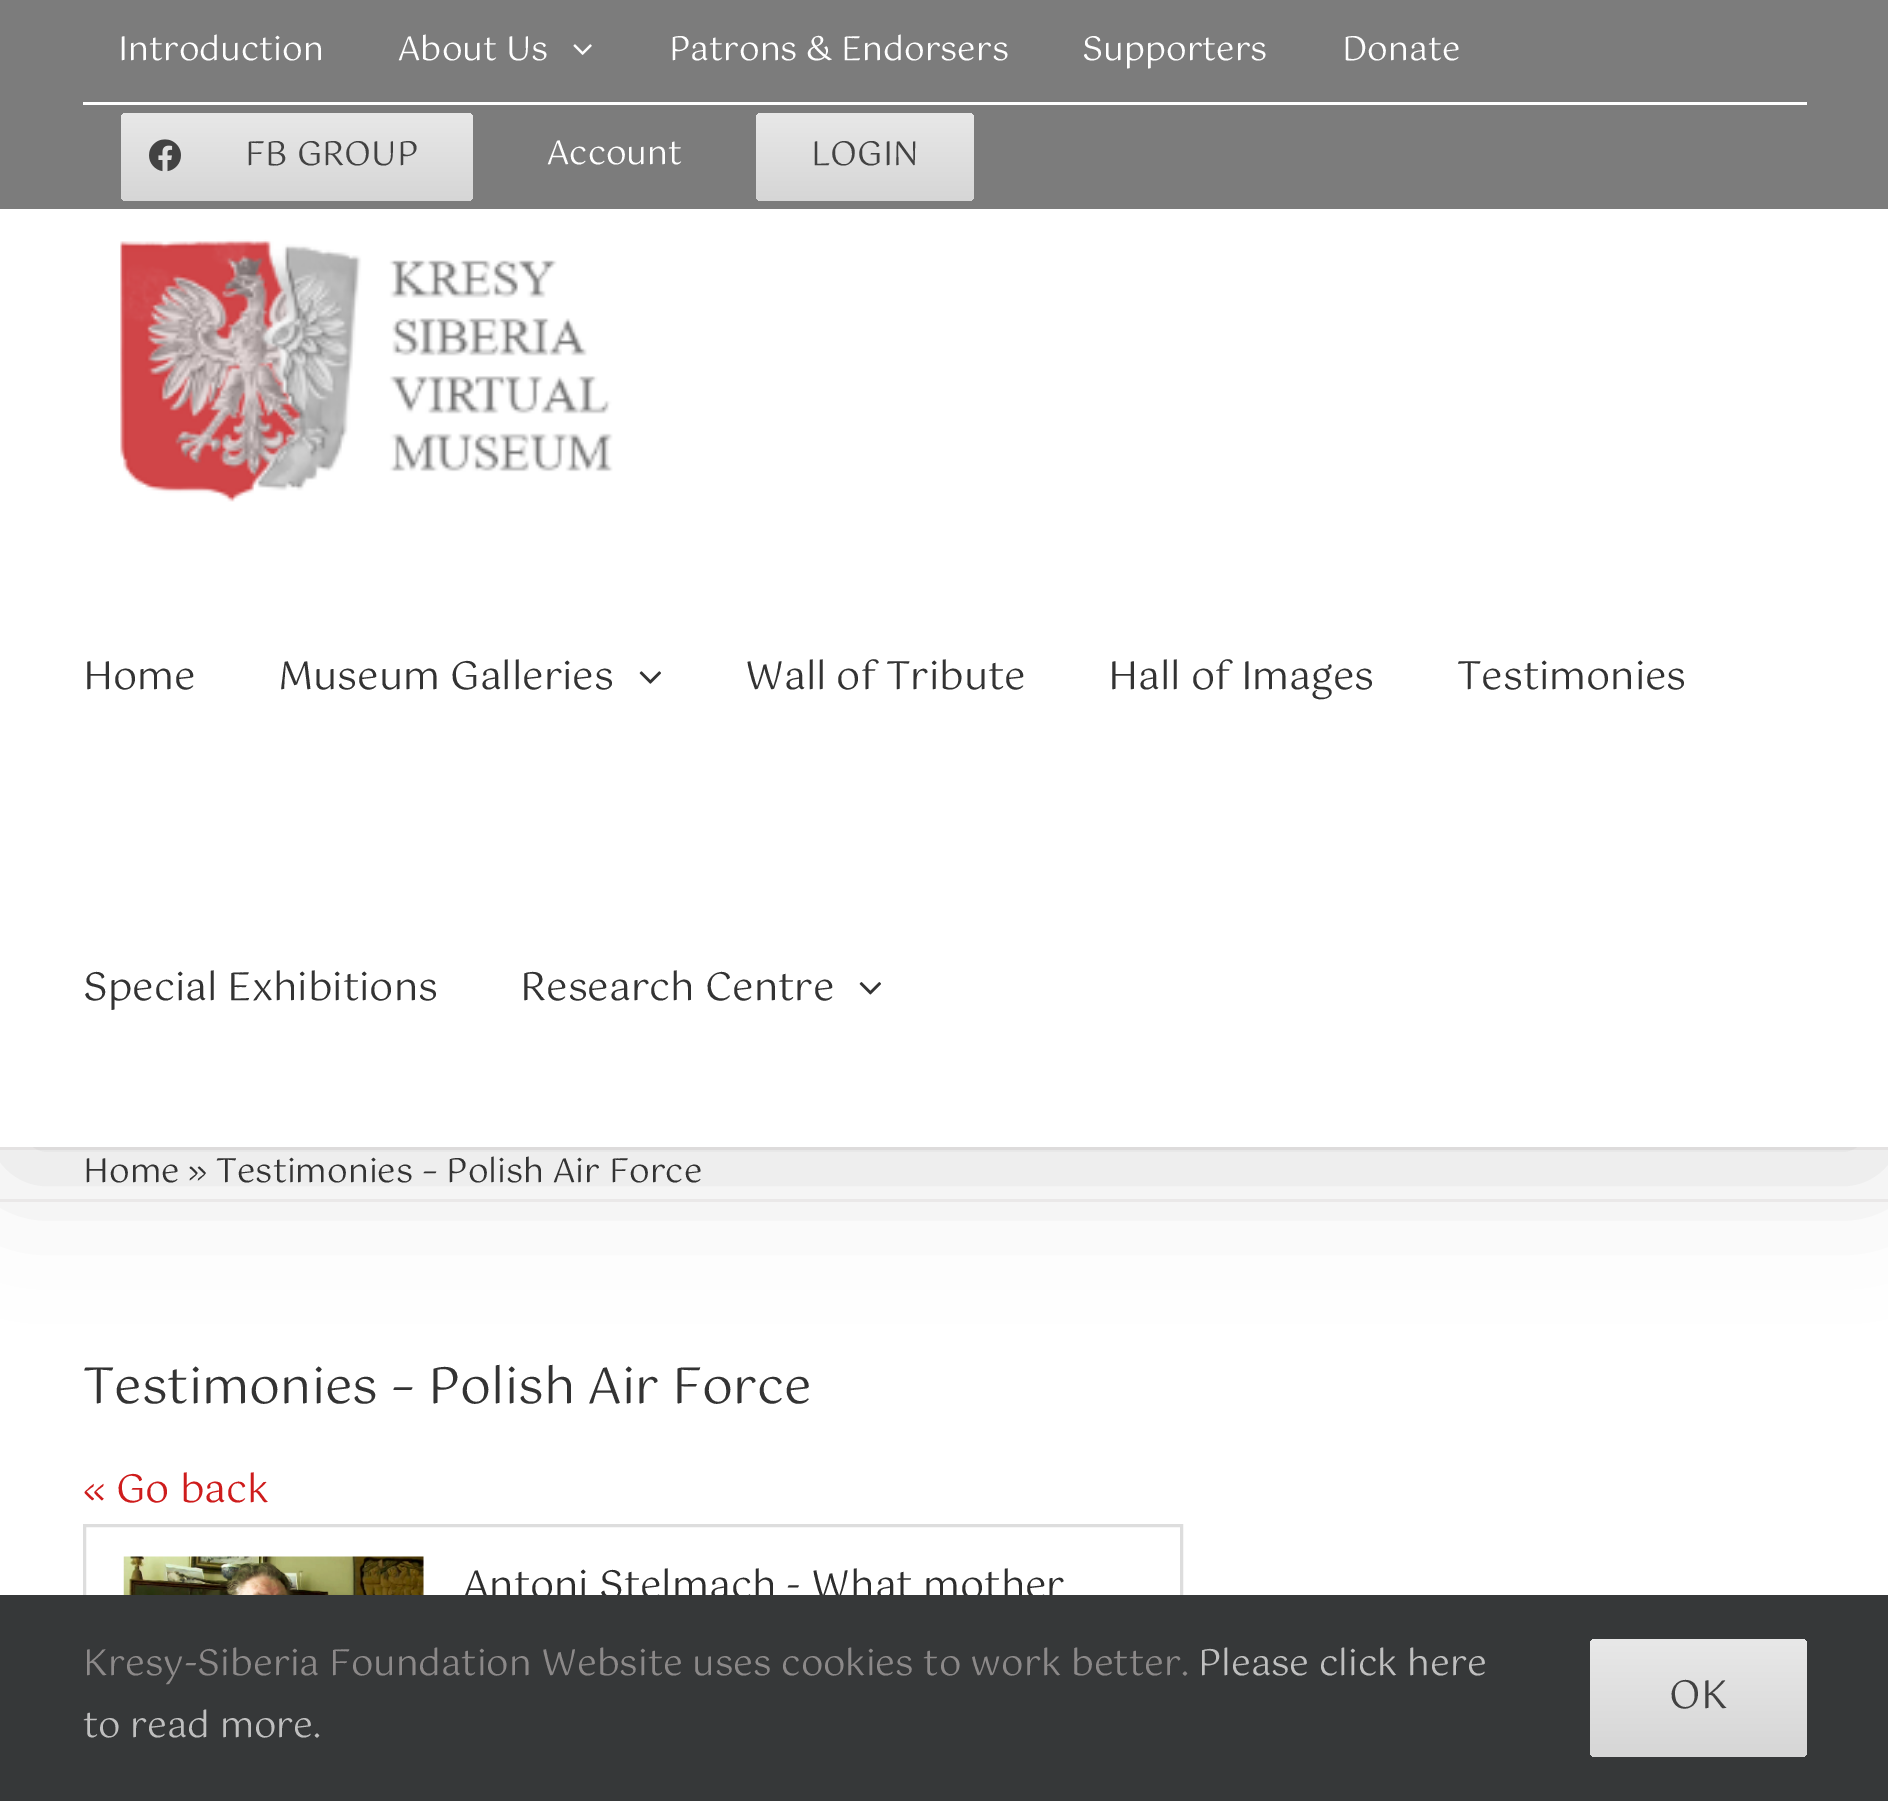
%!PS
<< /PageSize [1888 1801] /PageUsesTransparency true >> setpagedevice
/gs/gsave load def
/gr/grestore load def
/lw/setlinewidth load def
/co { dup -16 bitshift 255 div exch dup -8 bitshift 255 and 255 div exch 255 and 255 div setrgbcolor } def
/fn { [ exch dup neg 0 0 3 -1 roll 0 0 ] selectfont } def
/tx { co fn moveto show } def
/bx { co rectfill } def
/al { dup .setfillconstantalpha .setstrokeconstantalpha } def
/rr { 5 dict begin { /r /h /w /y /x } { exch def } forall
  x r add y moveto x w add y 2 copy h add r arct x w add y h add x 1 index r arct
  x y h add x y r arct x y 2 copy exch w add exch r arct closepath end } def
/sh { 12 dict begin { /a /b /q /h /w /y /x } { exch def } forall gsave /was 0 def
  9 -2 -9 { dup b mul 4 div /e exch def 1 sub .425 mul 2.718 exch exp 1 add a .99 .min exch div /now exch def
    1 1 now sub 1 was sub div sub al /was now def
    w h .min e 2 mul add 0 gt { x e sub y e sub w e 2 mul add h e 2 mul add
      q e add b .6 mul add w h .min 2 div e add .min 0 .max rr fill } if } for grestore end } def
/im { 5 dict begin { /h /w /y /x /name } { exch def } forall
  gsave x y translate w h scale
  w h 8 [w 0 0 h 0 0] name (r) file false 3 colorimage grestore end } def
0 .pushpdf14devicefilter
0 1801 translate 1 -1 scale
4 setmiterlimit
0 0 1888 1801 16#FFFFFF bx
0 1147 1888 3 16#F4F2F2 bx
0 1199 1888 3 16#F4F2F2 bx
16#000000 co
6 33 1878 1136 0 69 .14 sh
0 0 1888 209 16#7C7C7C bx
0 209 1888 938 16#FFFFFF bx
(media/1.raw) 573 44 19 11 im
83 102 1724 3 16#FFFFFF bx
gs 121 113 352 88 6 rr clip newpath
<< /ShadingType 2 /ColorSpace /DeviceRGB /Coords [297 113 297 201] /Extend [true true] /Function << /FunctionType 2 /Domain [0 1] /C0 [.91 .91 .91] /C1 [.839 .839 .839] /N 1 >> >> shfill gr
(media/2.raw) 149 139 32 33 im
gs 756 113 218 88 6 rr clip newpath
<< /ShadingType 2 /ColorSpace /DeviceRGB /Coords [865 113 865 201] /Extend [true true] /Function << /FunctionType 2 /Domain [0 1] /C0 [.91 .91 .91] /C1 [.839 .839 .839] /N 1 >> >> shfill gr
(media/3.raw) 120 239 493 263 im
(media/4.raw) 639 671 22 13 im
(media/5.raw) 859 982 22 13 im
16#DDDDDD co
3 lw
84.5 1525.5 1097 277 rectstroke
(media/6.raw) 123 1556 301 39 im
(Introduction) 118 60 /Gotu-Regular 33 16#FFFFFF tx
(About Us) 398 60 /Gotu-Regular 33 16#FFFFFF tx
(Patrons & Endorsers) 669 60 /Gotu-Regular 33 16#FFFFFF tx
(Supporters) 1082 60 /Gotu-Regular 33 16#FFFFFF tx
(Donate) 1342 60 /Gotu-Regular 33 16#FFFFFF tx
(FB GROUP) 245 165 /Gotu-Regular 33 16#424242 tx
(Account) 547 164 /Gotu-Regular 33 16#FFFFFF tx
(LOGIN) 811 165 /Gotu-Regular 33 16#424242 tx
(Home) 83 689 /Gotu-Regular 38.5 16#333333 tx
(Museum Galleries) 278 689 /Gotu-Regular 38.5 16#333333 tx
(Wall of Tribute) 745 689 /Gotu-Regular 38.5 16#333333 tx
(Hall of Images) 1108 689 /Gotu-Regular 38.5 16#333333 tx
(Testimonies) 1457 689 /Gotu-Regular 38.5 16#333333 tx
(Special Exhibitions) 83 1000 /Gotu-Regular 38.5 16#333333 tx
(Research Centre) 520 1000 /Gotu-Regular 38.5 16#333333 tx
(Home » Testimonies – Polish Air Force) 83 1182 /Gotu-Regular 33 16#333333 tx
(Testimonies – Polish Air Force) 83 1403 /Gotu-Regular 49.5 16#333333 tx
(« Go back) 83 1502 /Gotu-Regular 38.5 16#CE1C1C tx
(Antoni Stelmach - What mother) 463 1598 /Gotu-Regular 38.5 16#2D2D2D tx
0 1595 1888 206 16#363839 bx
(Kresy-Siberia Foundation Website uses cookies to work better.) 83 1675 /Gotu-Regular 35.75 16#8C8989 tx
(Please click here) 1198 1675 /Gotu-Regular 35.75 16#BFBFBF tx
(to read more.) 83 1737 /Gotu-Regular 35.75 16#BFBFBF tx
gs 1590 1639 217 118 6 rr clip newpath
<< /ShadingType 2 /ColorSpace /DeviceRGB /Coords [1698 1639 1698 1757] /Extend [true true] /Function << /FunctionType 2 /Domain [0 1] /C0 [.91 .91 .91] /C1 [.839 .839 .839] /N 1 >> >> shfill gr
(OK) 1669 1708 /Gotu-Regular 38.5 16#424242 tx
.poppdf14devicefilter showpage
